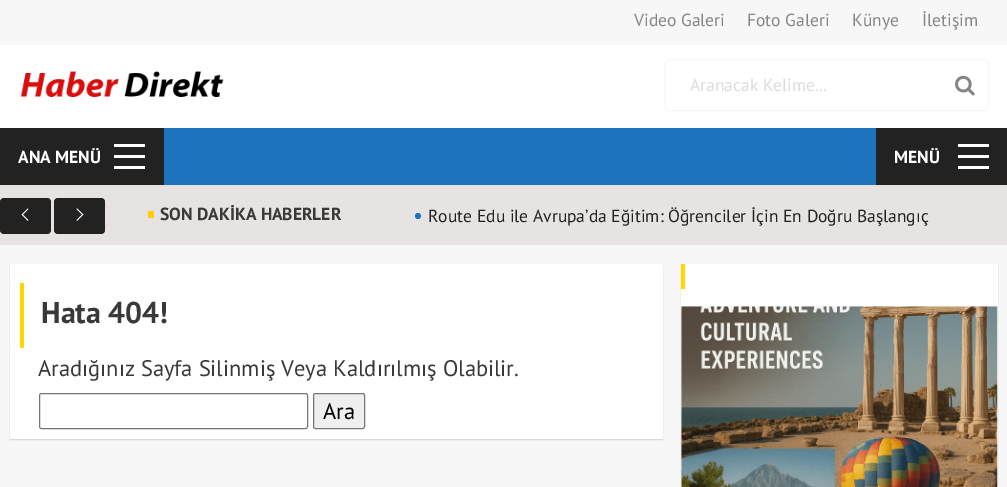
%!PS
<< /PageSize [1007 487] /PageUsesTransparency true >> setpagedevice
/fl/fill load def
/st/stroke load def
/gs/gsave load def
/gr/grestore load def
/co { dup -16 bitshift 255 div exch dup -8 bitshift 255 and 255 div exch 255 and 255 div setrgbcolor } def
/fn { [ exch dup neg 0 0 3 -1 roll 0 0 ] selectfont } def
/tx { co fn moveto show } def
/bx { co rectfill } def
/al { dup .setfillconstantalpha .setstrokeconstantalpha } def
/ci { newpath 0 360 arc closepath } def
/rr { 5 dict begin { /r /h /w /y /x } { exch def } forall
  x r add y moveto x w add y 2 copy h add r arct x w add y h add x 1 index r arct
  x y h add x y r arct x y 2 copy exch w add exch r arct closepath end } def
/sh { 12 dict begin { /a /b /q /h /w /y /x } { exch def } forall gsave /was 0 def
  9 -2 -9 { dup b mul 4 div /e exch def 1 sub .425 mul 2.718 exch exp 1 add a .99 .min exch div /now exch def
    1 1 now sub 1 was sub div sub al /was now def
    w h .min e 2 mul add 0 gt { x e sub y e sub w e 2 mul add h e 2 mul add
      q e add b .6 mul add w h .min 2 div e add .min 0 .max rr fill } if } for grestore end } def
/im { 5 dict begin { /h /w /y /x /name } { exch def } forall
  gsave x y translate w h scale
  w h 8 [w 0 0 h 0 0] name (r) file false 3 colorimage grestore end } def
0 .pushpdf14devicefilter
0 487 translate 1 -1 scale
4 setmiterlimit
0 0 1007 487 16#F7F7F7 bx
0 45 1007 83 16#FFFFFF bx
(media/1.raw) 20 71 204 26 im
16#F7F7F7 co
664.5 59.5 324 51 5.5 rr st
(media/2.raw) 955 75 20 21 im
164 128 712 57 16#1E73BE bx
0 128 164 57 16#222222 bx
114 144 31 3 16#FFFFFF bx
114 155 31 3 16#FFFFFF bx
114 166 31 3 16#FFFFFF bx
876 128 131 57 16#222222 bx
958 144 31 3 16#FFFFFF bx
958 155 31 3 16#FFFFFF bx
958 166 31 3 16#FFFFFF bx
0 185 1007 60 16#E8E3E3 bx
148 211 6 7 16#FFCC00 bx
16#222222 co
0 198 51 36 4 rr fl
(media/3.raw) 21 208 8 13 im
54 198 51 36 4 rr fl
(media/4.raw) 76 208 8 13 im
16#1E73BE co
418 216 3 ci fl
16#D3D3D3 co
10 265 653 175 0 .5 1 sh
10 264 653 175 16#FFFFFF bx
20 283 4 65 16#FFD800 bx
16#767676 co
39.5 393.5 268 35 2 rr st
16#EFEFEF co
313.5 393.5 51 35 2 rr gs fl gr
16#767676 co
st
16#D3D3D3 co
681 265 317 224 0 .5 1 sh
681 264 317 223 16#FFFFFF bx
681 264 4 25 16#FFD800 bx
(media/5.raw) 681 306 317 181 im
(Video Galeri) 634 26 /PTSans-Regular 17.5 16#858585 tx
(Foto Galeri) 747 26 /PTSans-Regular 17.5 16#858585 tx
(Künye) 852 26 /PTSans-Regular 17.5 16#858585 tx
(İletişim) 922 26 /PTSans-Regular 17.5 16#858585 tx
(Aranacak Kelime...) 690 91 /PTSans-Regular 17.5 16#DCDCDC tx
(ANA MENÜ) 18 163 /PTSans-Bold 17.5 16#FFFFFF tx
(MENÜ) 894 163 /PTSans-Bold 17.5 16#FFFFFF tx
(SON DAKİKA HABERLER) 160 220 /PTSans-Bold 17.5 16#393939 tx
(Route Edu ile Avrupa’da Eğitim: Öğrenciler İçin En Doğru Başlangıç) 428 222 /PTSans-Regular 17.5 16#222222 tx
(Hata 404!) 41 323 /PTSans-Bold 30 16#393939 tx
(Aradığınız Sayfa Silinmiş Veya Kaldırılmış Olabilir.) 38 376 /PTSans-Regular 22.5 16#393939 tx
(Ara) 323 419 /PTSans-Regular 22.5 16#000000 tx
.poppdf14devicefilter showpage
